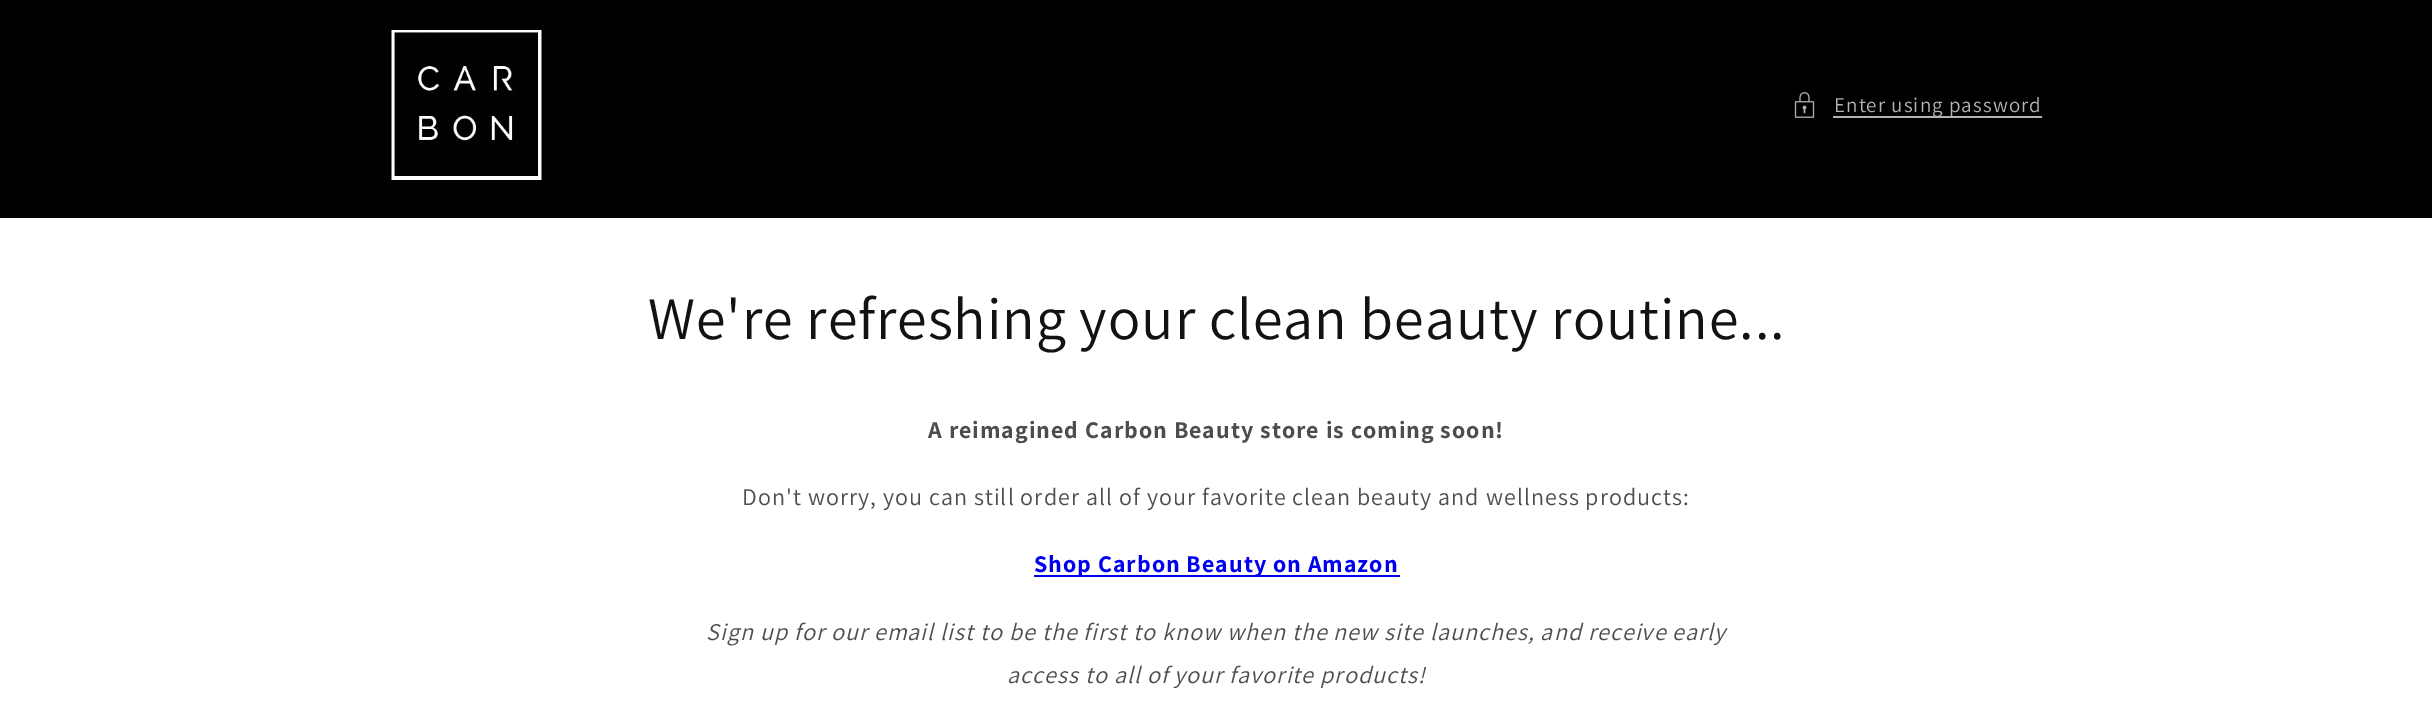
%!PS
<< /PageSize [2432 722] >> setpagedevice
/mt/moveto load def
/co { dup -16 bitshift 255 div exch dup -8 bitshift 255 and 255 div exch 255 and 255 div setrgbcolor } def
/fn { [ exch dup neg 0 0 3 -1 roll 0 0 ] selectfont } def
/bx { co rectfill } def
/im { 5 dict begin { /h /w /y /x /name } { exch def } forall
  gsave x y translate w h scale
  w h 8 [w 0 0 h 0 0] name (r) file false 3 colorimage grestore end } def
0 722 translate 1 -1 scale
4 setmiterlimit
0 0 2432 722 16#FFFFFF bx
0 0 2432 218 16#000000 bx
(media/1.raw) 391 30 151 150 im
(media/2.raw) 1794 92 21 26 im
1833 116 209 2 16#B3B3B3 bx
1034 575 366 2 16#0000EE bx
/Assistant-Regular 21 fn
16#B3B3B3 co
1834 112 mt 1.05 0 (Enter using password) ashow
/Assistant-Regular 60 fn
16#121212 co
648 339 mt .9 0 (We're refreshing your clean beauty routine...) ashow
/Assistant-Bold 24 fn
16#4D4D4D co
928 438 mt 1.05 0 (A reimagined Carbon Beauty store is coming soon!) ashow
/Assistant-Regular 24 fn
742 505 mt 1.05 0 (Don't worry, you can still order all of your favorite clean beauty and wellness products:) ashow
/Assistant-Bold 24 fn
16#0000EE co
1034 572 mt 1.05 0 (Shop Carbon Beauty on Amazon) ashow
/Assistant-Italic 24 fn
16#4D4D4D co
706 640 mt 1.05 0 (Sign up for our email list to be the first to know when the new site launches, and receive early) ashow
1007 683 mt 1.05 0 (access to all of your favorite products!) ashow
showpage
